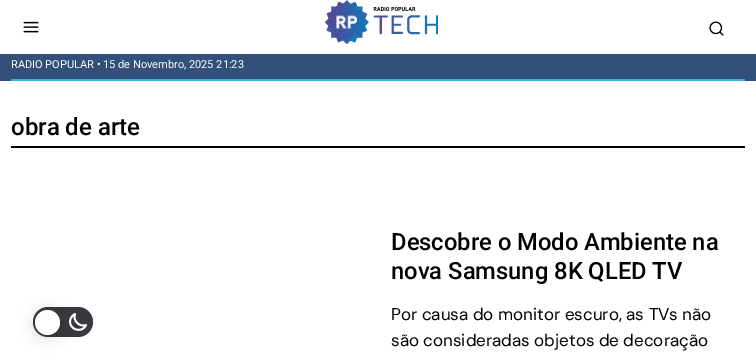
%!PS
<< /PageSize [756 357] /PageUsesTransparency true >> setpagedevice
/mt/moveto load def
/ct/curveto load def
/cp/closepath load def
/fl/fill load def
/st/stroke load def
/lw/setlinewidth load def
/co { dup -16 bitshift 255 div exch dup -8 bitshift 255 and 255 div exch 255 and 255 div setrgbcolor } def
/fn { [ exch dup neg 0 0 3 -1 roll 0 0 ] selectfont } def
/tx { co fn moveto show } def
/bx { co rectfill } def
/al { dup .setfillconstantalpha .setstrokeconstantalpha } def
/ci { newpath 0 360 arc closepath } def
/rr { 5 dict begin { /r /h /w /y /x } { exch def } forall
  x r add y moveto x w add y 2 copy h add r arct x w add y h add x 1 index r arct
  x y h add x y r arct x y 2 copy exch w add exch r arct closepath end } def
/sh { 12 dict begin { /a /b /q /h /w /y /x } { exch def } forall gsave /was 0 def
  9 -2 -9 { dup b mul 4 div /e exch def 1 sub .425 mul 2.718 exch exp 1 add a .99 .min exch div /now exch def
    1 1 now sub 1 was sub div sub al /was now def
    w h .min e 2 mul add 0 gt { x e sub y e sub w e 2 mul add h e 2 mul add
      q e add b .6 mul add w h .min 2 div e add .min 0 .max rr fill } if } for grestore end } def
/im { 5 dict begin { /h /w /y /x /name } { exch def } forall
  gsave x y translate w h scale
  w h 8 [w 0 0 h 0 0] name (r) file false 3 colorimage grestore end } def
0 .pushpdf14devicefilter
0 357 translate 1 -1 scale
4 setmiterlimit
0 0 756 357 16#FFFFFF bx
(media/1.raw) 23 21 16 12 im
(media/2.raw) 324 0 114 45 im
(media/3.raw) 709 21 15 15 im
0 54 756 27 16#33507A bx
11 79 734 2 16#37B1E3 bx
11 146 734 2 16#000000 bx
16#39393D co
33 307 60 30 15 rr fl
16#FFFFFF co
1.8 lw
1 setlinecap
1 setlinejoin
86 325 mt 79.5 327.5 72.5 320.5 75 314 ct 73 315 71 317 70.5 319 ct 67 329 82 334.5 86 325 ct cp st
16#000000 co
35 312 25 25 12.5 7.5 .15 sh
16#FFFFFF co
47.5 322.5 12.5 ci fl
(RADIO POPULAR • 15 de Novembro, 2025 21:23) 11 68 /Roboto-Regular 11 16#FFFFFF tx
(obra de arte) 11 135 /Roboto-Medium 24 16#000000 tx
(Descobre o Modo Ambiente na) 391 250 /Roboto-Medium 23.75 16#000000 tx
(nova Samsung 8K QLED TV) 391 279 /Roboto-Medium 23.75 16#000000 tx
(Por causa do monitor escuro, as TVs não) 391 320 /DMSans-Regular 17 16#000000 tx
(são consideradas objetos de decoração) 391 346 /DMSans-Regular 17 16#000000 tx
.poppdf14devicefilter showpage
